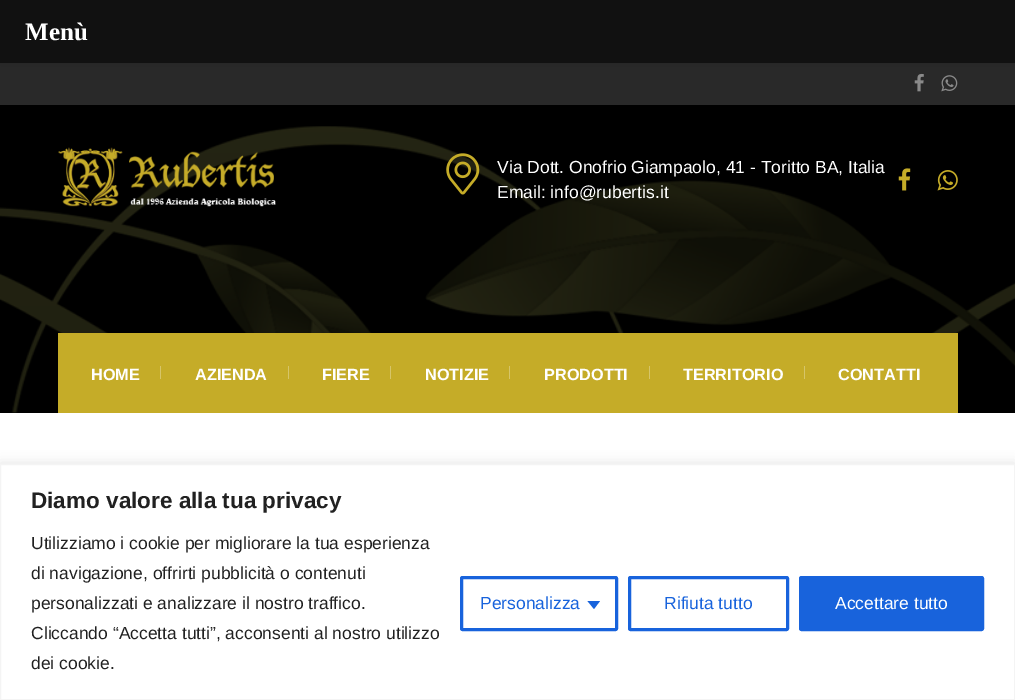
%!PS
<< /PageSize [1015 700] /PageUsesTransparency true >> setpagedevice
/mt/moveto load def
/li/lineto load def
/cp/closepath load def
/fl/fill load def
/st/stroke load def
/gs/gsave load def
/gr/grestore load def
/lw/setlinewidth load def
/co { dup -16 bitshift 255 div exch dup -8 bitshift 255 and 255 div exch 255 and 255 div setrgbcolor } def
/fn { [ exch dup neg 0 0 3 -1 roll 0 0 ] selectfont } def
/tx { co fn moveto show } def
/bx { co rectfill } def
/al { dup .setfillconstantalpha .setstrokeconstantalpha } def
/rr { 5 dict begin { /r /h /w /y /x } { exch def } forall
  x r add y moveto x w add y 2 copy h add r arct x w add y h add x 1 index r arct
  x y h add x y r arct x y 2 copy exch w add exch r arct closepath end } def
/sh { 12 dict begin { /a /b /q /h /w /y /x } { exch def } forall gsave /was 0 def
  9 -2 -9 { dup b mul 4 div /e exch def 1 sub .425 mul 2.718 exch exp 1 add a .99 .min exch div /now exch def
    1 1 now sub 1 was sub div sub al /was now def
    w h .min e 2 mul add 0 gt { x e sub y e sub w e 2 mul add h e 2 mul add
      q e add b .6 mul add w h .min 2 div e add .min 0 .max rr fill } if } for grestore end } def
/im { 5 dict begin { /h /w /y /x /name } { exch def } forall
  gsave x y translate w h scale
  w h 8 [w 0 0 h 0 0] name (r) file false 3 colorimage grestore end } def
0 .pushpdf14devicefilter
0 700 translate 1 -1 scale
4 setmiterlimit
0 0 1015 700 16#FFFFFF bx
0 63 1015 42 16#292929 bx
(media/2.raw) 914 73 10 19 im
(media/3.raw) 941 75 17 17 im
16#000000 co
0 0 1015 63 0 5 .15 sh
0 0 1015 63 16#111111 bx
0 105 1015 308 16#000000 bx
(media/1.raw) 0 126 1015 287 im
(media/4.raw) 58 147 218 60 im
(media/5.raw) 446 153 34 42 im
(media/6.raw) 898 168 13 23 im
(media/7.raw) 937 170 21 21 im
58 333 900 80 16#C5AC28 bx
160 366 1 13 16#D6C569 bx
288 366 1 13 16#D6C569 bx
390 366 1 13 16#D6C569 bx
509 366 1 13 16#D6C569 bx
649 366 1 13 16#D6C569 bx
804 366 1 13 16#D6C569 bx
16#ACABAB co
0 463 1015 236 0 6 .3 sh
16#FFFFFF co
.5 464.5 mt 1014.5 464.5 li 1014.5 699.5 li .5 699.5 li cp gs fl gr
16#F4F4F4 co
st
16#1863DC co
3 lw
461.5 577.5 155 52 1 rr st
587.5 601 mt 600 601 li 594 609 li cp fl
629.5 577.5 158 52 1 rr st
800.5 577.5 182 52 1 rr gs fl gr
st
(Menù) 25 40 /LiberationSerif-Bold 25 16#FFFFFF tx
(Via Dott. Onofrio Giampaolo, 41 - Toritto BA, Italia) 497 173 /Arimo-Regular 17.5 16#FFFFFF tx
(Email: info@rubertis.it) 497 198 /Arimo-Regular 17.5 16#FFFFFF tx
(HOME) 91 380 /Arimo-Bold 16.25 16#FFFFFF tx
(AZIENDA) 195 380 /Arimo-Bold 16.25 16#FFFFFF tx
(FIERE) 322 380 /Arimo-Bold 16.25 16#FFFFFF tx
(NOTIZIE) 425 380 /Arimo-Bold 16.25 16#FFFFFF tx
(PRODOTTI) 544 380 /Arimo-Bold 16.25 16#FFFFFF tx
(TERRITORIO) 683 380 /Arimo-Bold 16.25 16#FFFFFF tx
(CONTATTI) 838 380 /Arimo-Bold 16.25 16#FFFFFF tx
(Diamo valore alla tua privacy) 31 508 /Arimo-Bold 22.5 16#212121 tx
(Utilizziamo i cookie per migliorare la tua esperienza) 31 549 /Arimo-Regular 17.5 16#212121 tx
(di navigazione, offrirti pubblicità o contenuti) 31 579 /Arimo-Regular 17.5 16#212121 tx
(personalizzati e analizzare il nostro traffico.) 31 609 /Arimo-Regular 17.5 16#212121 tx
(Cliccando “Accetta tutti”, acconsenti al nostro utilizzo) 31 639 /Arimo-Regular 17.5 16#212121 tx
(dei cookie.) 31 669 /Arimo-Regular 17.5 16#212121 tx
(Personalizza) 480 609 /Arimo-Regular 17.5 16#1863DC tx
(Rifiuta tutto) 664 609 /Arimo-Regular 17.5 16#1863DC tx
(Accettare tutto) 835 609 /Arimo-Regular 17.5 16#FFFFFF tx
.poppdf14devicefilter showpage
